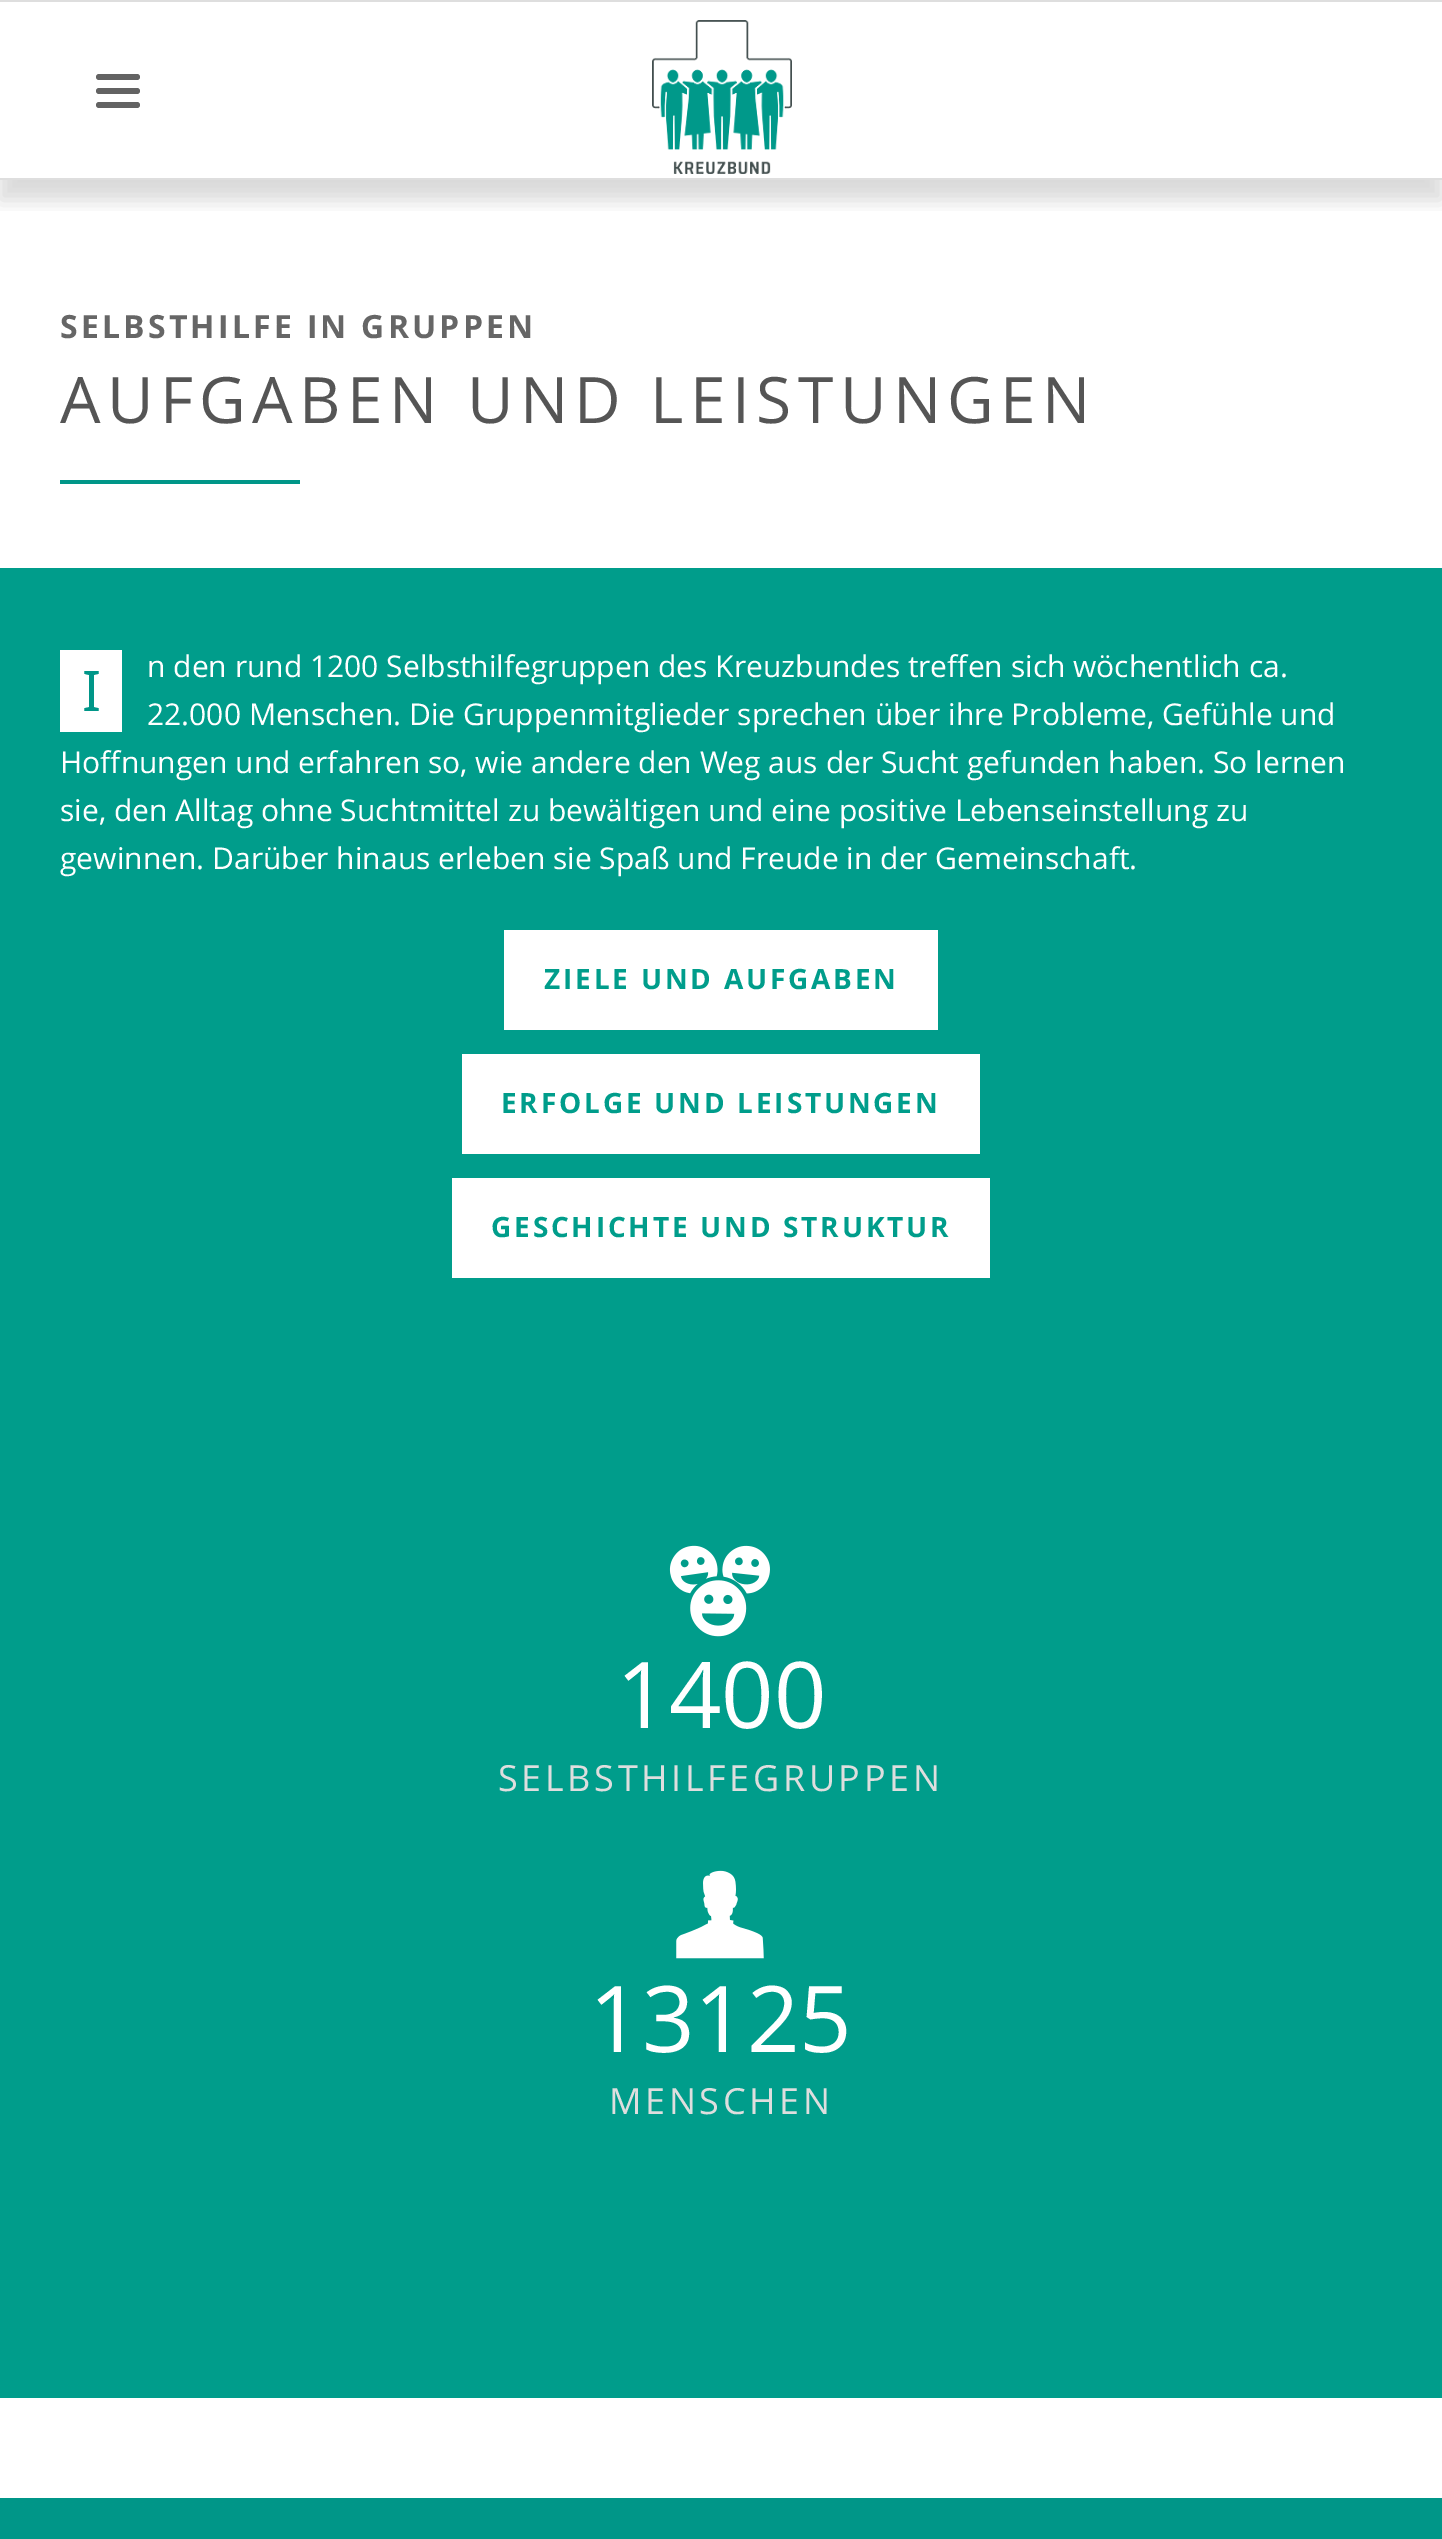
%!PS
<< /PageSize [1442 2539] /PageUsesTransparency true >> setpagedevice
/mt/moveto load def
/fl/fill load def
/gs/gsave load def
/gr/grestore load def
/co { dup -16 bitshift 255 div exch dup -8 bitshift 255 and 255 div exch 255 and 255 div setrgbcolor } def
/fn { [ exch dup neg 0 0 3 -1 roll 0 0 ] selectfont } def
/tx { co fn moveto show } def
/bx { co rectfill } def
/al { dup .setfillconstantalpha .setstrokeconstantalpha } def
/rr { 5 dict begin { /r /h /w /y /x } { exch def } forall
  x r add y moveto x w add y 2 copy h add r arct x w add y h add x 1 index r arct
  x y h add x y r arct x y 2 copy exch w add exch r arct closepath end } def
/sh { 12 dict begin { /a /b /q /h /w /y /x } { exch def } forall gsave /was 0 def
  9 -2 -9 { dup b mul 4 div /e exch def 1 sub .425 mul 2.718 exch exp 1 add a .99 .min exch div /now exch def
    1 1 now sub 1 was sub div sub al /was now def
    w h .min e 2 mul add 0 gt { x e sub y e sub w e 2 mul add h e 2 mul add
      q e add b .6 mul add w h .min 2 div e add .min 0 .max rr fill } if } for grestore end } def
/im { 5 dict begin { /h /w /y /x /name } { exch def } forall
  gsave x y translate w h scale
  w h 8 [w 0 0 h 0 0] name (r) file false 3 colorimage grestore end } def
0 .pushpdf14devicefilter
0 2539 translate 1 -1 scale
4 setmiterlimit
0 0 1442 2539 16#FFFFFF bx
gs
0 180 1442 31 rectclip
16#000000 co
0 20 1442 180 0 10 .15 sh
gr
0 0 1442 2 16#DEDEDE bx
0 178 1442 2 16#DEDEDE bx
16#636363 co
96 102 44 6 3 rr fl
96 88 44 6 3 rr fl
96 74 44 6 3 rr fl
(media/1.raw) 652 20 140 154 im
60 480 240 4 16#009688 bx
0 568 1442 1830 16#009D8B bx
60 650 62 82 16#FFFFFF bx
504 930 434 100 16#FFFFFF bx
462 1054 518 100 16#FFFFFF bx
452 1178 538 100 16#FFFFFF bx
(media/2.raw) 669 1545 101 92 im
(media/3.raw) 676 1870 88 89 im
0 2498 1442 41 16#009688 bx
/OpenSans-Bold 32 fn
16#666666 co
60 338 mt 3.2 0 (SELBSTHILFE IN GRUPPEN) ashow
/OpenSans-Regular 64 fn
16#555555 co
60 423 mt 6.4 0 (AUFGABEN UND LEISTUNGEN) ashow
(I) 82 711 /NotoSans-Regular 56 16#009688 tx
(n den rund 1200 Selbsthilfegruppen des Kreuzbundes treffen sich wöchentlich ca.) 147 677 /OpenSans-Regular 30 16#FFFFFF tx
(22.000 Menschen. Die Gruppenmitglieder sprechen über ihre Probleme, Gefühle und) 147 725 /OpenSans-Regular 30 16#FFFFFF tx
(Hoffnungen und erfahren so, wie andere den Weg aus der Sucht gefunden haben. So lernen) 60 773 /OpenSans-Regular 30 16#FFFFFF tx
(sie, den Alltag ohne Suchtmittel zu bewältigen und eine positive Lebenseinstellung zu) 60 821 /OpenSans-Regular 30 16#FFFFFF tx
(gewinnen. Darüber hinaus erleben sie Spaß und Freude in der Gemeinschaft.) 60 869 /OpenSans-Regular 30 16#FFFFFF tx
/OpenSans-Bold 28 fn
16#009D8B co
544 989 mt 2.8 0 (ZIELE UND AUFGABEN) ashow
501 1113 mt 2.8 0 (ERFOLGE UND LEISTUNGEN) ashow
491 1237 mt 2.8 0 (GESCHICHTE UND STRUKTUR) ashow
(1400) 616 1728 /OpenSans-Regular 92 16#FFFFFF tx
/OpenSans-Regular 36 fn
16#DEDEDE co
498 1791 mt 3.6 0 (SELBSTHILFEGRUPPEN) ashow
(13125) 589 2052 /OpenSans-Regular 92 16#FFFFFF tx
/OpenSans-Regular 36 fn
16#DEDEDE co
609 2114 mt 3.6 0 (MENSCHEN) ashow
.poppdf14devicefilter showpage
